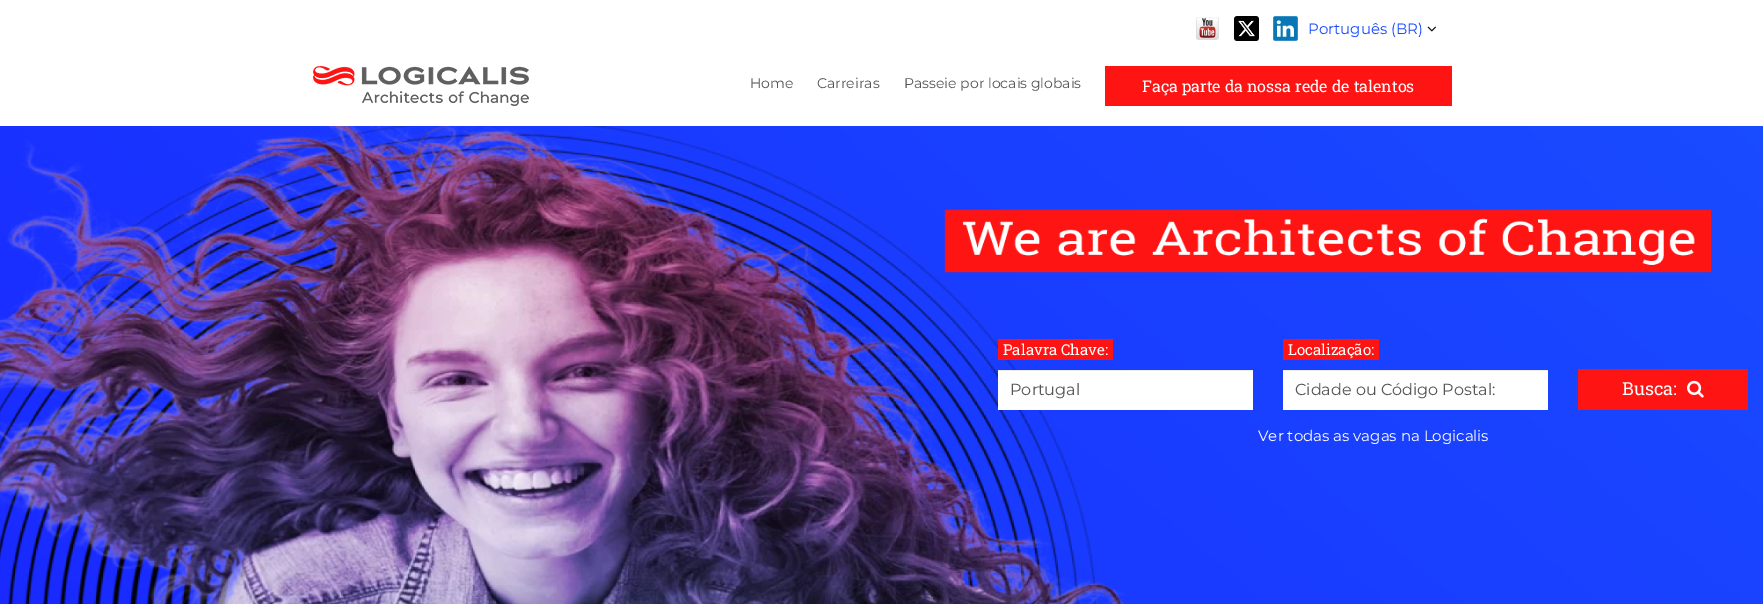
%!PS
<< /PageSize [1763 604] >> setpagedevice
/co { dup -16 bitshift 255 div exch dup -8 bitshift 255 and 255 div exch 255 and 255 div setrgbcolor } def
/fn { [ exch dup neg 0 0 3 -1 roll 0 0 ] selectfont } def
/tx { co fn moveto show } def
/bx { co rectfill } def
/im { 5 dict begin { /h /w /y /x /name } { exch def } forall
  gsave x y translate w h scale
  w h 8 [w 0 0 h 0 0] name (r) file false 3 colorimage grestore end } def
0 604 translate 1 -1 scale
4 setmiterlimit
0 0 1763 604 16#FFFFFF bx
(media/1.raw) 1196 17 23 23 im
(media/2.raw) 1234 16 25 25 im
(media/3.raw) 1273 16 25 25 im
(media/4.raw) 1427 26 9 6 im
(media/5.raw) 313 66 216 40 im
1105 66 347 40 16#FF1414 bx
(media/6.raw) 0 126 1763 478 im
998 339 115 21 16#FF1414 bx
998 371 255 39 16#FFFFFF bx
998 370 255 1 16#ECECEC bx
1283 339 96 21 16#FF1414 bx
1283 371 265 39 16#FFFFFF bx
1283 370 265 1 16#ECECEC bx
1578 369 170 41 16#FF1414 bx
(media/7.raw) 1687 380 17 18 im
(Português \(BR\)) 1308 34 /Montserrat-Regular 15 16#194BFE tx
(Home) 750 88 /Montserrat-Regular 14 16#555555 tx
(Carreiras) 817 88 /Montserrat-Regular 14 16#555555 tx
(Passeie por locais globais) 904 88 /Montserrat-Regular 14 16#555555 tx
(Faça parte da nossa rede de talentos) 1142 92 /RobotoSlab-Regular 16 16#FFFFFF tx
(Palavra Chave:) 1003 355 /RobotoSlab-Regular 15 16#FFFFFF tx
(Portugal) 1010 395 /Montserrat-Regular 16 16#555555 tx
(Localização:) 1288 355 /RobotoSlab-Regular 15 16#FFFFFF tx
(Cidade ou Código Postal:) 1295 395 /Montserrat-Regular 16 16#555555 tx
(Busca:) 1622 395 /RobotoSlab-Regular 18 16#FFFFFF tx
(Ver todas as vagas na Logicalis) 1258 441 /Montserrat-Regular 15 16#FFFFFF tx
showpage
